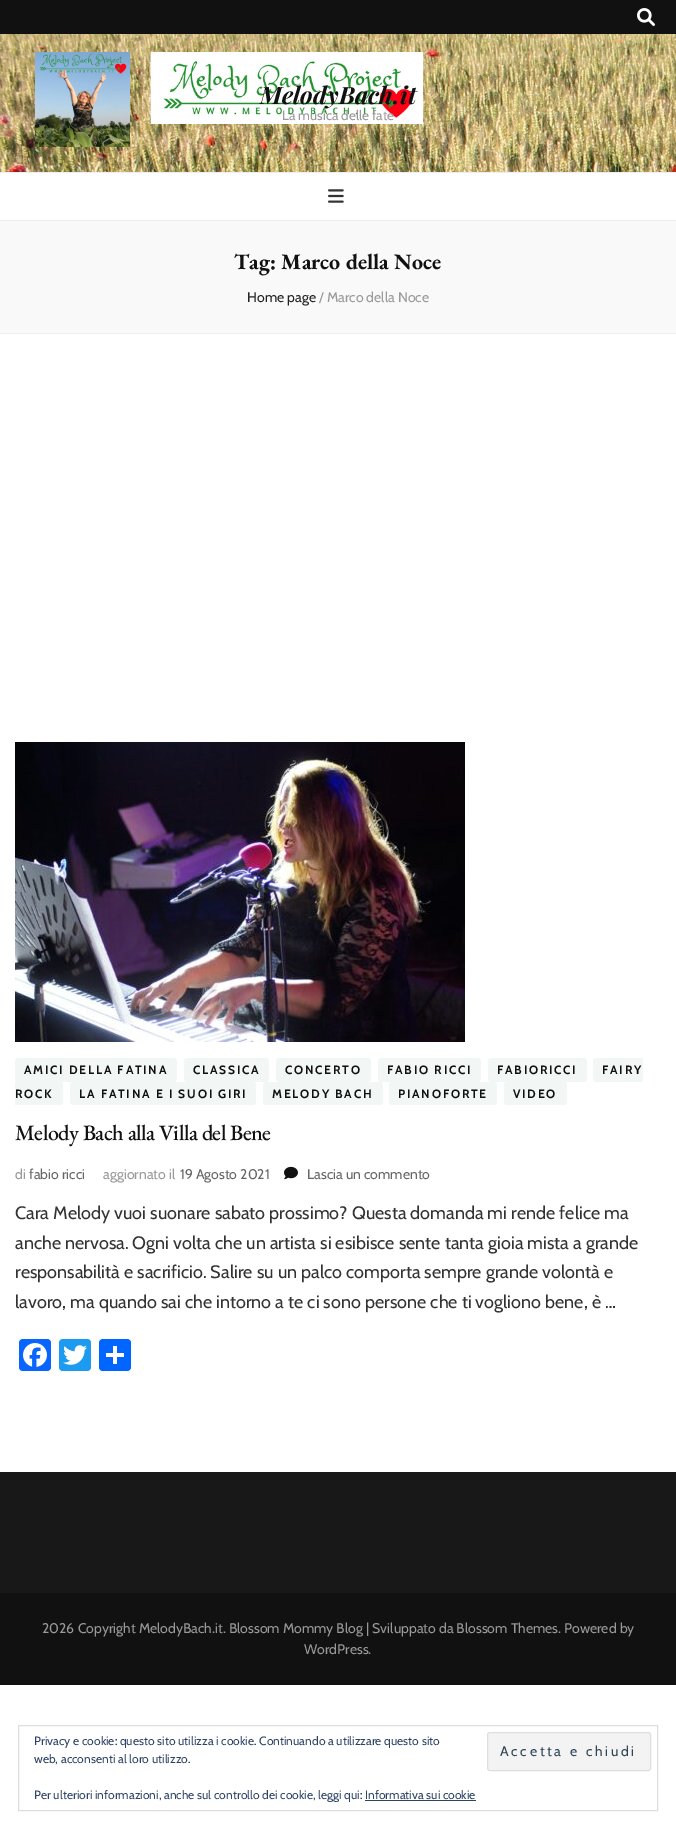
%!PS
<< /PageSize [676 1829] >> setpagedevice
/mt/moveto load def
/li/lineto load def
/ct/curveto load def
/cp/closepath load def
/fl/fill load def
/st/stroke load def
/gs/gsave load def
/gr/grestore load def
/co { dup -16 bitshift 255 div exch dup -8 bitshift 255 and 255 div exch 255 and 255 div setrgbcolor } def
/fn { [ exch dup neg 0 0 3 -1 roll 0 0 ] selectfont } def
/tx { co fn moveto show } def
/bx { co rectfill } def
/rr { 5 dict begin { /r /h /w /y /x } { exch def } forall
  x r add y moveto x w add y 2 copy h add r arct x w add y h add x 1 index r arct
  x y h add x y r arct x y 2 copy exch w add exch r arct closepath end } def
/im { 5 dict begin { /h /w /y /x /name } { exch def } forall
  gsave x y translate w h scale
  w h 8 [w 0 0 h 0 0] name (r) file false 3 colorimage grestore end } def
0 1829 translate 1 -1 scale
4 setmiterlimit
0 0 676 1829 16#FFFFFF bx
0 0 676 34 16#111111 bx
(media/1.raw) 637 8 18 18 im
(media/2.raw) 0 34 676 138 im
0 172 676 1 16#EEEEEE bx
0 220 676 1 16#EEEEEE bx
(media/3.raw) 328 189 16 14 im
0 221 676 112 16#F9F9F9 bx
0 333 676 1 16#EEEEEE bx
(media/4.raw) 15 742 450 300 im
16#F2F7F6 co
15 1058 162 24 3 rr fl
184 1058 85 24 3 rr fl
276 1058 95 24 3 rr fl
378 1058 103 24 3 rr fl
488 1058 99 24 3 rr fl
596 1058 mt 643 1058 li 643 1082 li 596 1082 li 594.5 1082 593 1080.5 593 1079 ct 593 1061 li 593 1059.5 594.5 1058 596 1058 ct cp fl
15 1082 mt 60 1082 li 61.5 1082 63 1083.5 63 1085 ct 63 1102 li 63 1103.5 61.5 1105 60 1105 ct 15 1105 li cp fl
70 1082 186 23 3 rr fl
263 1082 120 23 3 rr fl
389 1082 108 23 3 rr fl
504 1082 63 23 3 rr fl
(media/5.raw) 284 1166 14 14 im
16#0866FF co
19 1339 32 32 4 rr fl
(media/6.raw) 23 1343 24 24 im
16#1D9BF0 co
59 1339 32 32 4 rr fl
(media/7.raw) 63 1345 24 20 im
16#0166FF co
99 1339 32 32 4 rr fl
113 1346 4 18 16#FFFFFF bx
106 1353 18 4 16#FFFFFF bx
0 1472 676 121 16#181818 bx
0 1593 676 92 16#111111 bx
16#DEDEDE co
18.5 1725.5 639 85 rectstroke
16#F3F3F3 co
487.5 1732.5 163 38 2.5 rr gs fl gr
16#DEDEDE co
st
365 1800 111 1 16#2E4467 bx
(MelodyBach.it) 260 104 /PlayfairDisplay-BoldItalic 24 16#111111 tx
(La musica delle fate) 282 120 /Cabin-Regular 13.5 16#999999 tx
(Tag: Marco della Noce) 234 269 /EBGaramond-Bold 22 16#111111 tx
(Home page) 247 302 /Cabin-Regular 14 16#222222 tx
(/ Marco della Noce) 319 302 /Cabin-Regular 14 16#999999 tx
/Cabin-Bold 12 fn
16#111111 co
24 1074 mt 1.8 0 (AMICI DELLA FATINA) ashow
193 1074 mt 1.8 0 (CLASSICA) ashow
285 1074 mt 1.8 0 (CONCERTO) ashow
387 1074 mt 1.8 0 (FABIO RICCI) ashow
497 1074 mt 1.8 0 (FABIORICCI) ashow
602 1074 mt 1.8 0 (FAIRY) ashow
15 1098 mt 1.8 0 (ROCK) ashow
79 1098 mt 1.8 0 (LA FATINA E I SUOI GIRI) ashow
272 1098 mt 1.8 0 (MELODY BACH) ashow
398 1098 mt 1.8 0 (PIANOFORTE) ashow
513 1098 mt 1.8 0 (VIDEO) ashow
/EBGaramond-Medium 22 fn
15 1140 mt -.55 0 (Melody Bach alla Villa del Bene) ashow
(di) 15 1179 /Cabin-Regular 14 16#999999 tx
(fabio ricci) 29 1179 /Cabin-Regular 14 16#666666 tx
(aggiornato il) 103 1179 /Cabin-Regular 14 16#999999 tx
(19 Agosto 2021) 180 1179 /Cabin-Regular 14 16#666666 tx
(Lascia un commento) 307 1179 /Cabin-Regular 14 16#666666 tx
(Cara Melody vuoi suonare sabato prossimo? Questa domanda mi rende felice ma) 15 1219 /Cabin-Regular 18 16#333333 tx
(anche nervosa. Ogni volta che un artista si esibisce sente tanta gioia mista a grande) 15 1249 /Cabin-Regular 18 16#333333 tx
(responsabilità e sacrificio. Salire su un palco comporta sempre grande volontà e) 15 1278 /Cabin-Regular 18 16#333333 tx
(lavoro, ma quando sai che intorno a te ci sono persone che ti vogliono bene, è …) 15 1308 /Cabin-Regular 18 16#333333 tx
(2026 Copyright MelodyBach.it. Blossom Mommy Blog | Sviluppato da Blossom Themes. Powered by) 42 1633 /Cabin-Regular 14 16#999999 tx
(WordPress.) 304 1654 /Cabin-Regular 14 16#999999 tx
(Privacy e cookie: questo sito utilizza i cookie. Continuando a utilizzare questo sito) 34 1745 /Cabin-Regular 12 16#2E4467 tx
/Cabin-Regular 14 fn
16#2E4453 co
500 1756 mt 2.75 0 (Accetta e chiudi) ashow
(web, acconsenti al loro utilizzo.) 34 1763 /Cabin-Regular 12 16#2E4467 tx
(Per ulteriori informazioni, anche sul controllo dei cookie, leggi qui: Informativa sui cookie) 34 1799 /Cabin-Regular 12 16#2E4467 tx
showpage
